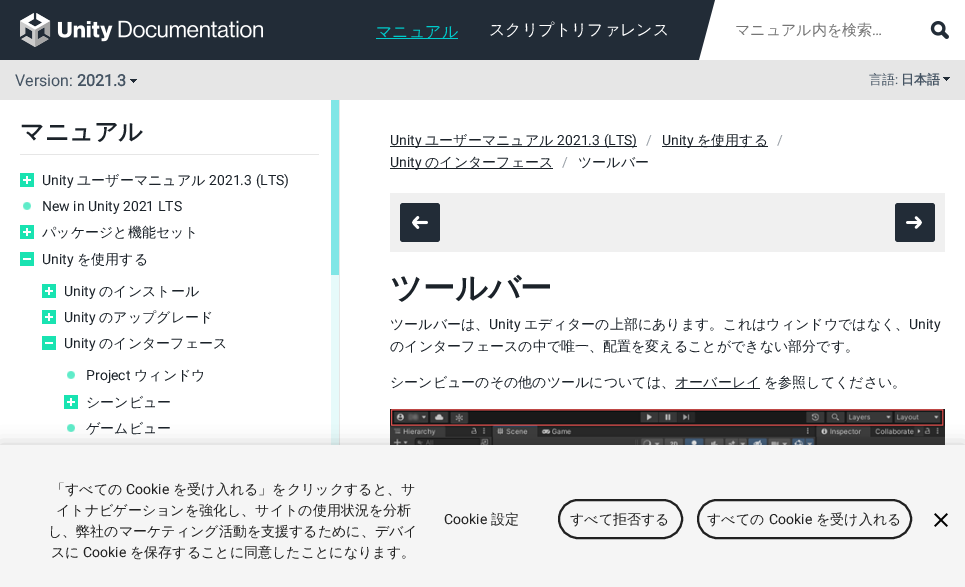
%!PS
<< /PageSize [965 587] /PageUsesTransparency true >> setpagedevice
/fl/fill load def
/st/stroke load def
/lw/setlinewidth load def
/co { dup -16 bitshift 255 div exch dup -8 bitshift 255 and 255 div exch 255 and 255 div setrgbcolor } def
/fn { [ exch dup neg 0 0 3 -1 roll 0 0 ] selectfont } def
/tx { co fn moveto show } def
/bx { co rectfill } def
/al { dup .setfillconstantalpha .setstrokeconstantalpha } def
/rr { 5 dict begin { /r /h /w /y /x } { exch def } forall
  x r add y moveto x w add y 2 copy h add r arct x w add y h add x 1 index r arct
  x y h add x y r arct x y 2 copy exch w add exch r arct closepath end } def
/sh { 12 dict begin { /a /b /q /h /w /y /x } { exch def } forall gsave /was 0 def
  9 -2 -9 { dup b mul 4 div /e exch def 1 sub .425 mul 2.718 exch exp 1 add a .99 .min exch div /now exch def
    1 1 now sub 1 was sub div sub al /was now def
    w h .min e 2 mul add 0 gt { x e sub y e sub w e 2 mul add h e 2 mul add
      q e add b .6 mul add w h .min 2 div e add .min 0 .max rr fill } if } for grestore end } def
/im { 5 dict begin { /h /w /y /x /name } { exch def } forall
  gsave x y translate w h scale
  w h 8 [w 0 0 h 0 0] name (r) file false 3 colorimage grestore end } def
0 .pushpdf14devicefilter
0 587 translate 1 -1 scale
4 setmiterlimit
0 0 965 587 16#FFFFFF bx
0 0 715 60 16#222C37 bx
(media/1.raw) 20 13 243 34 im
376 38 82 1 16#00CCCC bx
(media/2.raw) 699 0 16 60 im
(media/3.raw) 930 21 19 18 im
0 60 965 40 16#E6E6E6 bx
(media/4.raw) 130 79 7 4 im
(media/4.raw) 943 77 7 4 im
339 100 1 345 16#E6E6E6 bx
20 154 299 1 16#E6E6E6 bx
20 173 14 14 16#19E3B1 bx
(media/5.raw) 23 176 8 8 im
(media/6.raw) 23 202 8 8 im
20 225 14 14 16#19E3B1 bx
(media/5.raw) 23 228 8 8 im
20 252 14 14 16#19E3B1 bx
23 258 8 2 16#FFFFFF bx
42 284 14 14 16#19E3B1 bx
(media/5.raw) 45 287 8 8 im
42 310 14 14 16#19E3B1 bx
(media/5.raw) 45 313 8 8 im
42 336 14 14 16#19E3B1 bx
45 342 8 2 16#FFFFFF bx
(media/6.raw) 67 371 8 8 im
64 395 14 14 16#19E3B1 bx
(media/5.raw) 67 398 8 8 im
(media/6.raw) 67 424 8 8 im
331 100 8 175 16#80E6E6 bx
331 275 8 170 16#E6FAFA bx
390 146 247 1 16#1B2229 bx
662 146 106 1 16#1B2229 bx
390 168 163 1 16#1B2229 bx
390 193 555 59 16#F0F0F0 bx
16#222C37 co
400 203 40 39 3 rr fl
(media/7.raw) 412 216 16 13 im
895 203 40 39 3 rr fl
(media/8.raw) 906 216 16 13 im
675 388 85 1 16#1B2229 bx
(media/9.raw) 390 409 555 36 im
16#000000 co
0 445 965 142 0 9 .2 sh
0 445 965 142 16#F5F5F5 bx
16#212121 co
2 lw
559 500 123 38 19 rr st
698 500 213 38 19 rr st
(media/10.raw) 934 513 14 14 im
(マニュアル) 376 37 /WenQuanYiZenHei-Medium 16 16#00CCCC tx
(スクリプトリファレンス) 489 35 /WenQuanYiZenHei-Medium 16 16#FFFFFF tx
(マニュアル内を検索) 735 35 /WenQuanYiZenHei-Medium 15 16#757575 tx
(…) 872 35 /Roboto-Regular 15 16#757575 tx
(Version:) 15 86 /Roboto-Regular 16 16#455463 tx
(2021.3) 77 86 /Roboto-Bold 16 16#455463 tx
(言語) 869 84 /WenQuanYiZenHei-Medium 13 16#455463 tx
(:) 895 84 /Roboto-Regular 13 16#455463 tx
(日本語) 901 84 /WenQuanYiZenHei-Bold 13 16#455463 tx
(マニュアル) 20 140 /WenQuanYiZenHei-Bold 24 16#1B2229 tx
(Unity) 42 185 /Roboto-Regular 14 16#1B2229 tx
(ユーザーマニュアル) 77 185 /WenQuanYiZenHei-Medium 14 16#1B2229 tx
(2021.3 \(LTS\)) 209 185 /Roboto-Regular 14 16#1B2229 tx
(New in Unity 2021 LTS) 42 211 /Roboto-Regular 14 16#1B2229 tx
(パッケージと機能セット) 42 237 /WenQuanYiZenHei-Medium 14 16#1B2229 tx
(Unity) 42 264 /Roboto-Regular 14 16#1B2229 tx
(を使用する) 77 264 /WenQuanYiZenHei-Medium 14 16#1B2229 tx
(Unity) 64 296 /Roboto-Regular 14 16#1B2229 tx
(のインストール) 99 296 /WenQuanYiZenHei-Medium 14 16#1B2229 tx
(Unity) 64 322 /Roboto-Regular 14 16#1B2229 tx
(のアップグレード) 99 322 /WenQuanYiZenHei-Medium 14 16#1B2229 tx
(Unity) 64 348 /Roboto-Regular 14 16#1B2229 tx
(のインターフェース) 99 348 /WenQuanYiZenHei-Medium 14 16#1B2229 tx
(Project) 86 380 /Roboto-Regular 14 16#1B2229 tx
(ウィンドウ) 134 380 /WenQuanYiZenHei-Medium 14 16#1B2229 tx
(シーンビュー) 86 407 /WenQuanYiZenHei-Medium 14 16#1B2229 tx
(ゲームビュー) 86 433 /WenQuanYiZenHei-Medium 14 16#1B2229 tx
(Unity) 390 145 /Roboto-Regular 14 16#1B2229 tx
(ユーザーマニュアル) 425 145 /WenQuanYiZenHei-Medium 14 16#1B2229 tx
(2021.3 \(LTS\)) 557 145 /Roboto-Regular 14 16#1B2229 tx
(/) 646 145 /Roboto-Regular 14 16#99A0A7 tx
(Unity) 662 145 /Roboto-Regular 14 16#1B2229 tx
(を使用する) 697 145 /WenQuanYiZenHei-Medium 14 16#1B2229 tx
(/) 777 145 /Roboto-Regular 14 16#99A0A7 tx
(Unity) 390 167 /Roboto-Regular 14 16#1B2229 tx
(のインターフェース) 425 167 /WenQuanYiZenHei-Medium 14 16#1B2229 tx
(/) 562 167 /Roboto-Regular 14 16#99A0A7 tx
(ツールバー) 578 167 /WenQuanYiZenHei-Medium 14 16#1B2229 tx
(ツールバー) 390 299 /WenQuanYiZenHei-Bold 32 16#1B2229 tx
(ツールバーは、) 390 329 /WenQuanYiZenHei-Medium 14 16#1B2229 tx
(Unity) 489 329 /Roboto-Regular 14 16#1B2229 tx
(エディターの上部にあります。これはウィンドウではなく、) 524 329 /WenQuanYiZenHei-Medium 14 16#1B2229 tx
(Unity) 909 329 /Roboto-Regular 14 16#1B2229 tx
(のインターフェースの中で唯一、配置を変えることができない部分です。) 390 351 /WenQuanYiZenHei-Medium 14 16#1B2229 tx
(シーンビューのその他のツールについては、) 390 387 /WenQuanYiZenHei-Medium 14 16#1B2229 tx
(オーバーレイ) 675 387 /WenQuanYiZenHei-Medium 14 16#1B2229 tx
(を参照してください。) 764 387 /WenQuanYiZenHei-Medium 14 16#1B2229 tx
(「すべての) 51 494 /WenQuanYiZenHei-Medium 14 16#212121 tx
(Cookie) 126 494 /Roboto-Regular 14 16#212121 tx
(を受け入れる」をクリックすると、サ) 173 494 /WenQuanYiZenHei-Medium 14 16#212121 tx
(イトナビゲーションを強化し、サイトの使用状況を分析) 56 515 /WenQuanYiZenHei-Medium 14 16#212121 tx
(し、弊社のマーケティング活動を支援するために、デバイ) 48 536 /WenQuanYiZenHei-Medium 14 16#212121 tx
(スに) 51 557 /WenQuanYiZenHei-Medium 14 16#212121 tx
(Cookie) 83 557 /Roboto-Regular 14 16#212121 tx
(を保存することに同意したことになります。) 130 557 /WenQuanYiZenHei-Medium 14 16#212121 tx
(Cookie) 444 524 /Roboto-Regular 14 16#212121 tx
(設定) 491 524 /WenQuanYiZenHei-Medium 14 16#212121 tx
(すべて拒否する) 570 524 /WenQuanYiZenHei-Medium 14 16#212121 tx
(すべての) 707 524 /WenQuanYiZenHei-Medium 14 16#212121 tx
(Cookie) 769 524 /Roboto-Regular 14 16#212121 tx
(を受け入れる) 816 524 /WenQuanYiZenHei-Medium 14 16#212121 tx
.poppdf14devicefilter showpage
